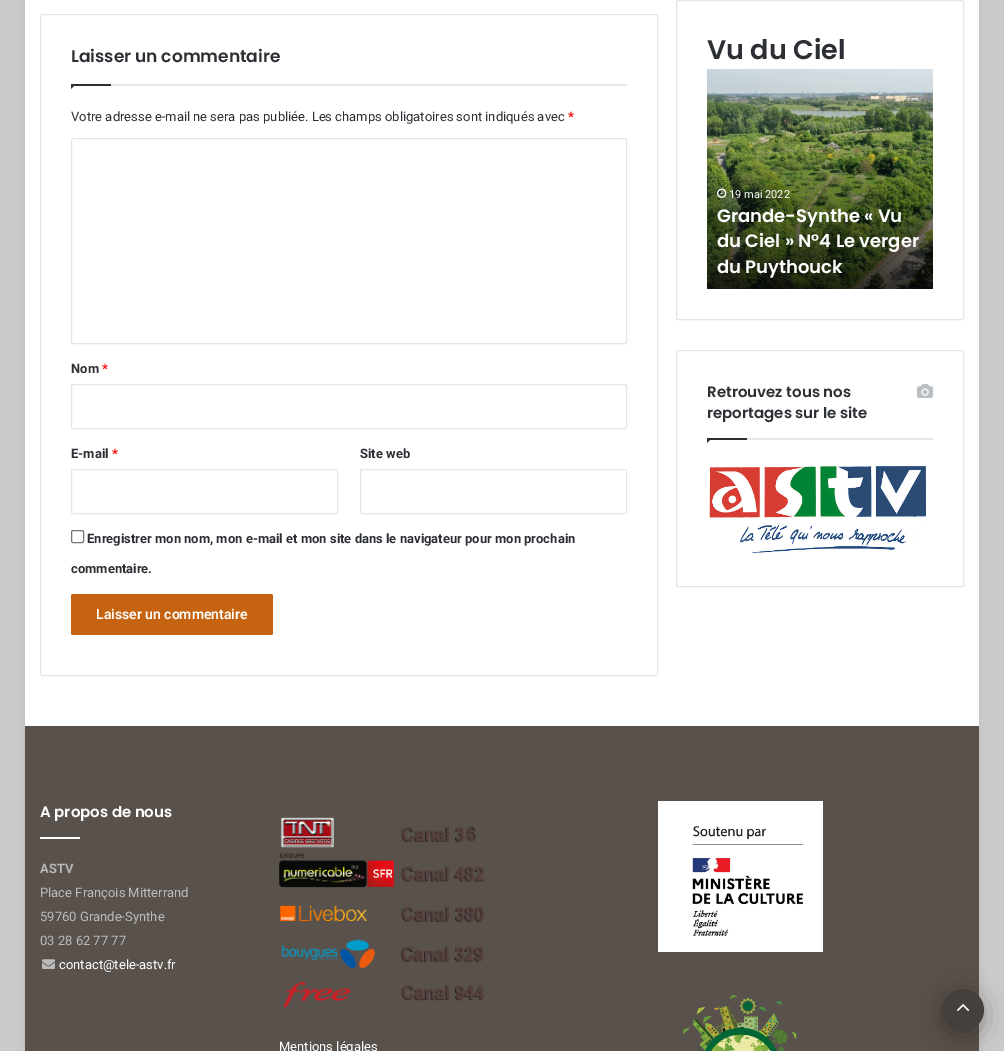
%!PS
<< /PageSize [1004 1051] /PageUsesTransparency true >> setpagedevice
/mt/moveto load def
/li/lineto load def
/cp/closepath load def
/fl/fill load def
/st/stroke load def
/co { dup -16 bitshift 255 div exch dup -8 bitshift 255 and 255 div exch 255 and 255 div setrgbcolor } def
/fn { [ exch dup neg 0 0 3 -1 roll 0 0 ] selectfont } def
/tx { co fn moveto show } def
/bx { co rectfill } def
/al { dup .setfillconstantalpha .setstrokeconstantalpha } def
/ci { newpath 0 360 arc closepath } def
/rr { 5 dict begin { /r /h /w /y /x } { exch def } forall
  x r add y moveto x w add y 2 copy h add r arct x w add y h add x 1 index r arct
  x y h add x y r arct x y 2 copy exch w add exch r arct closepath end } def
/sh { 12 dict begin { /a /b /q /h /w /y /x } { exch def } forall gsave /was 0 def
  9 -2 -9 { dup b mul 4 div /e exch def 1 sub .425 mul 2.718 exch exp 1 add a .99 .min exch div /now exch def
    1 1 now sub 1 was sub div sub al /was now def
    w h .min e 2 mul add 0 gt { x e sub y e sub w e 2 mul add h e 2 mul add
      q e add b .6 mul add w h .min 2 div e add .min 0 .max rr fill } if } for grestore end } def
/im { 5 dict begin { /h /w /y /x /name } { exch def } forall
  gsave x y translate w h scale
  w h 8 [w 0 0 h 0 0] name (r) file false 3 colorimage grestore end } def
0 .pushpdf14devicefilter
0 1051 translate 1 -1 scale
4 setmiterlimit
0 0 1004 1051 16#CDCBC9 bx
16#ABABAB co
25 -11 954 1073 0 3.5 .5 sh
25 0 954 726 16#FFFFFF bx
16#E6E6E6 co
40.5 14.5 617 661 1.5 rr st
111 84 516 2 16#E6E6E6 bx
16#2C2F34 co
71 84 mt 76 84 li 71 89 li cp fl
71 84 40 2 16#2C2F34 bx
16#E6E6E6 co
71.5 138.5 555 205 1.5 rr st
71.5 384.5 555 44 1.5 rr st
71.5 469.5 266 44 1.5 rr st
360.5 469.5 266 44 1.5 rr st
16#767676 co
71.5 530.5 12 12 1.5 rr st
16#C66311 co
71 594 202 41 2 rr fl
16#E6E6E6 co
676.5 .5 287 319 1.5 rr st
(media/1.raw) 707 69 226 220 im
(media/2.raw) 717 188 10 10 im
676.5 350.5 287 236 1.5 rr st
747 438 186 2 16#E6E6E6 bx
(media/3.raw) 917 384 17 14 im
16#2C2F34 co
707 438 mt 712 438 li 707 443 li cp fl
707 438 40 2 16#2C2F34 bx
(media/4.raw) 709 465 217 90 im
25 726 954 325 16#59524C bx
40 837 40 2 16#FFFFFF bx
(media/5.raw) 42 959 13 10 im
(media/6.raw) 658 801 165 151 im
(media/7.raw) 683 995 114 56 im
(media/8.raw) 279 817 206 191 im
16#000000 co
942 994 42 42 21 12.5 .3 sh
16#46403C co
963 1010 21 ci fl
(media/9.raw) 957 1004 13 8 im
(Laisser un commentaire) 71 62 /Poppins-SemiBold 17 16#2C2F34 tx
(Votre adresse e-mail ne sera pas publiée. Les champs obligatoires sont indiqués avec) 71 121 /Roboto-Regular 13 16#2C2F34 tx
(*) 568 121 /Roboto-Bold 13 16#FF0000 tx
(Nom) 71 373 /Roboto-Bold 13 16#2C2F34 tx
(*) 102 373 /Roboto-Bold 13 16#FF0000 tx
(E-mail) 71 458 /Roboto-Bold 13 16#2C2F34 tx
(*) 112 458 /Roboto-Bold 13 16#FF0000 tx
(Site web) 360 458 /Roboto-Bold 13 16#2C2F34 tx
(Enregistrer mon nom, mon e-mail et mon site dans le navigateur pour mon prochain) 87 543 /Roboto-Bold 13 16#2C2F34 tx
(commentaire.) 71 573 /Roboto-Bold 13 16#2C2F34 tx
(Laisser un commentaire) 96 619 /Roboto-SemiBold 14 16#FFFFFF tx
(Vu du Ciel) 707 59 /Poppins-SemiBold 27 16#2C2F34 tx
(19 mai 2022) 729 198 /Roboto-Regular 11 16#FFFFFF tx
(Grande-Synthe « Vu) 717 222 /Poppins-SemiBold 18 16#FFFFFF tx
(du Ciel » N°4 Le verger) 717 247 /Poppins-SemiBold 18 16#FFFFFF tx
(du Puythouck) 717 273 /Poppins-SemiBold 18 16#FFFFFF tx
(Retrouvez tous nos) 707 397 /Poppins-SemiBold 15 16#2C2F34 tx
(reportages sur le site) 707 418 /Poppins-SemiBold 15 16#2C2F34 tx
(A propos de nous) 40 817 /Poppins-SemiBold 15 16#FFFFFF tx
(ASTV) 40 873 /Roboto-SemiBold 13 16#BBBBBB tx
(Place François Mitterrand) 40 897 /Roboto-Regular 13 16#BBBBBB tx
(59760 Grande-Synthe) 40 921 /Roboto-Regular 13 16#BBBBBB tx
(03 28 62 77 77) 40 945 /Roboto-Regular 13 16#BBBBBB tx
(contact@tele-astv.fr) 59 969 /Roboto-Regular 13 16#FFFFFF tx
(Mentions légales) 279 1051 /Roboto-Regular 13 16#FFFFFF tx
.poppdf14devicefilter showpage
